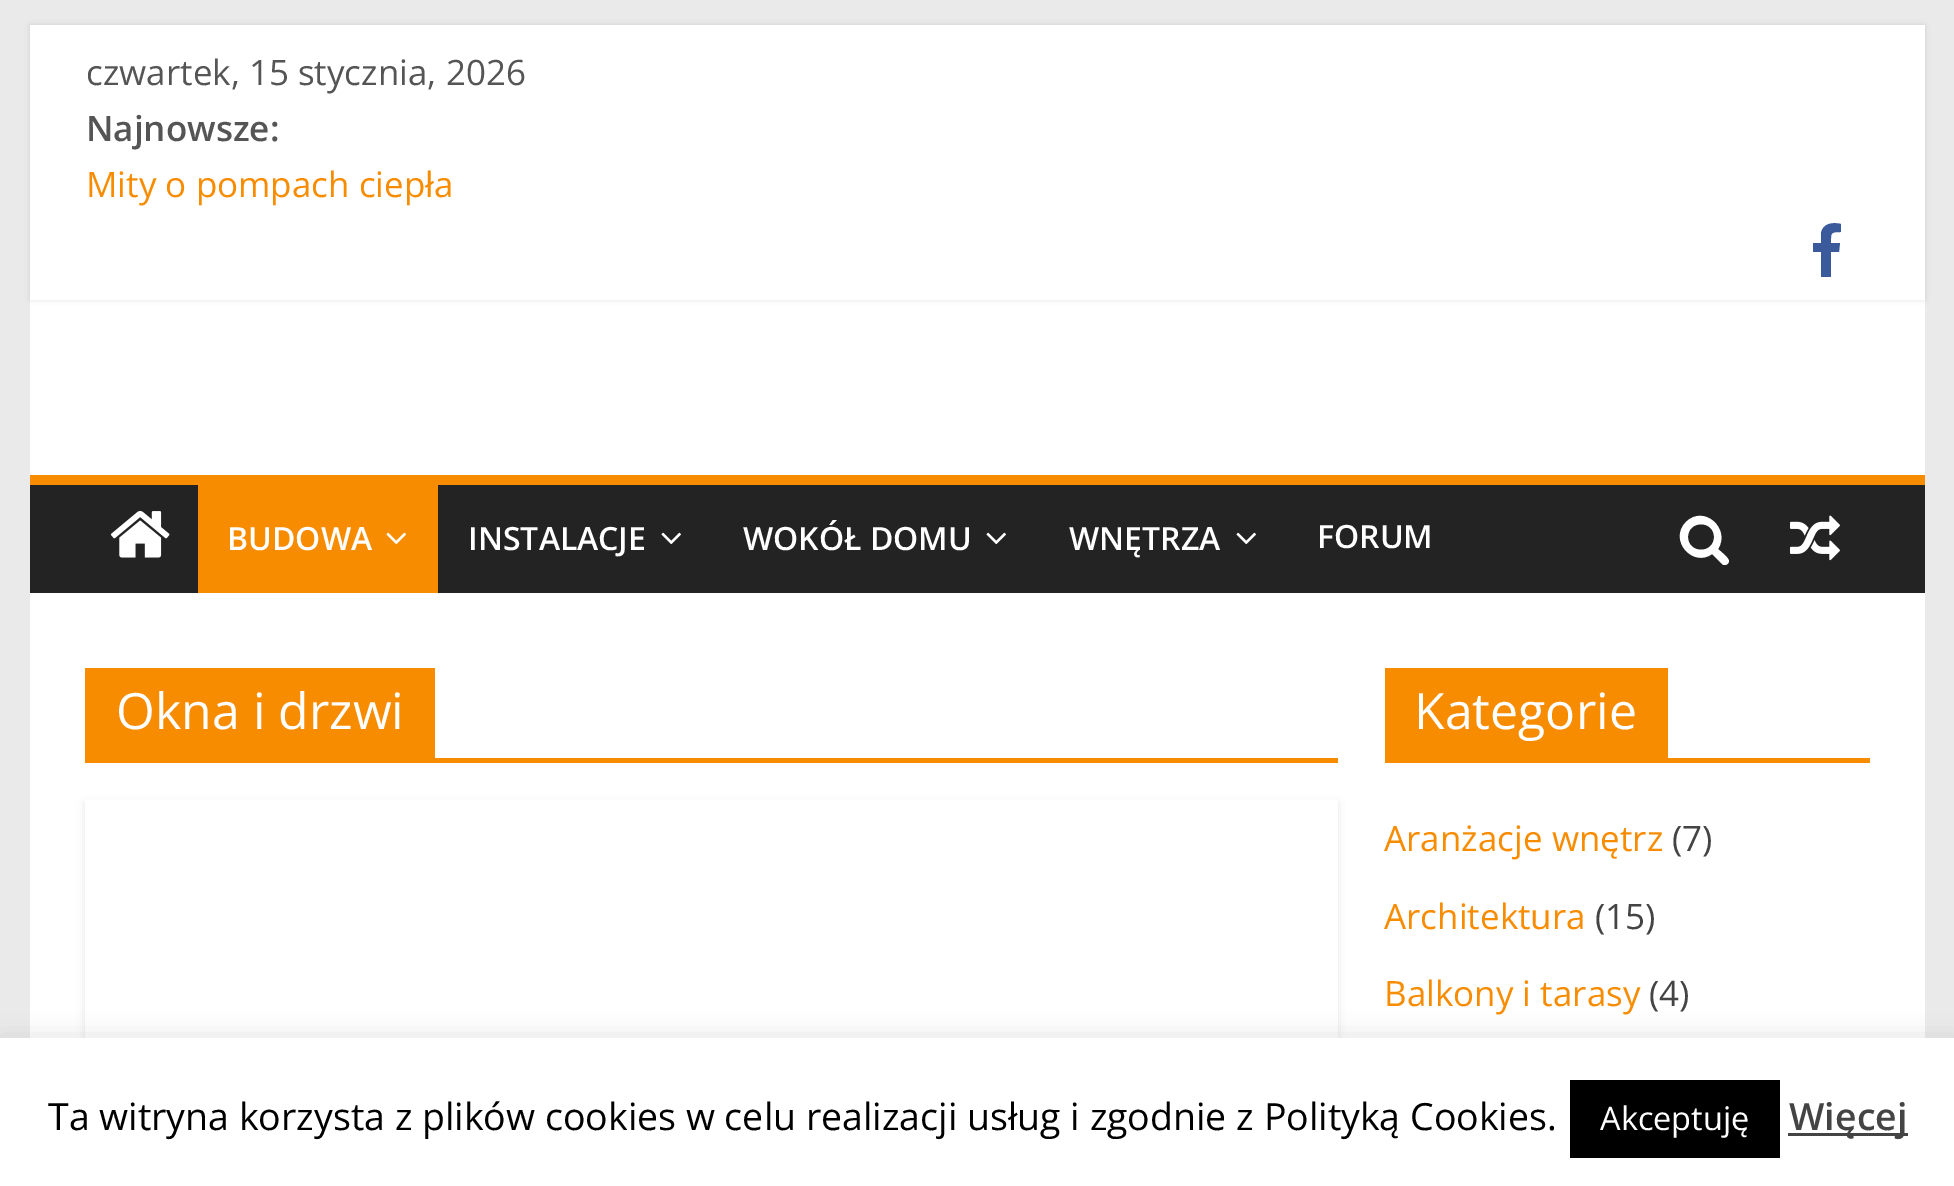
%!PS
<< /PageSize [1954 1186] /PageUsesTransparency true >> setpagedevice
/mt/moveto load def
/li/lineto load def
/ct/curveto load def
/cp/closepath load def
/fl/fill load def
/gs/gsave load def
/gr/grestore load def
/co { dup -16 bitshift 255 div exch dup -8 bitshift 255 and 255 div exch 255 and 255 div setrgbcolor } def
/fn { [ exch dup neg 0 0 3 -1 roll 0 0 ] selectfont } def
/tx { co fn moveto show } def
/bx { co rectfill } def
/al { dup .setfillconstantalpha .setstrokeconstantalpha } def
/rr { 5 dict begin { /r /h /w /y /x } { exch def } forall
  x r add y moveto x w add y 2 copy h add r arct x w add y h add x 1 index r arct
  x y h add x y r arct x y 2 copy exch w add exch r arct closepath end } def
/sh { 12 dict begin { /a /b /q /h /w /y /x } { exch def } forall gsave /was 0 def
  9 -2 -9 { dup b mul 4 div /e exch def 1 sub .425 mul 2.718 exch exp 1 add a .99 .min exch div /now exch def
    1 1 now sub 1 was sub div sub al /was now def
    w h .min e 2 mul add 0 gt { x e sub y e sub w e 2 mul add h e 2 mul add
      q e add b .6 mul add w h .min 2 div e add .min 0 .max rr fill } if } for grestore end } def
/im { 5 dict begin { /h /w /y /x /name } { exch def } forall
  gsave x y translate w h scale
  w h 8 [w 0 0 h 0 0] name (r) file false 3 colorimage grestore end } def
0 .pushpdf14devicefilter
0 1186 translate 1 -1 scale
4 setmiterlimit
0 0 1954 1186 16#EAEAEA bx
30 25 1895 450 16#FFFFFF bx
gs
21 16 mt 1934 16 li 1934 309 li 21 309 li cp 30 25 mt 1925 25 li 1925 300 li 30 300 li cp eoclip newpath
16#000000 co
30 25 1895 275 0 2.5 .1 sh
gr
16#3B5A9B co
1841 224 mt 1833 222 1823 223 1821 233 ct 1821 243 li 1813 243 li 1813 252 li 1821 252 li 1821 277 li 1831 277 li 1831 252 li 1839 252 li 1840 243 li 1831 243 li 1831 233 1830 232 1841 232 ct cp fl
30 485 1895 108 16#232323 bx
30 475 1895 10 16#F88C00 bx
(media/1.raw) 110 511 60 47 im
198 485 240 108 16#F88C00 bx
(media/2.raw) 386 532 20 13 im
(media/3.raw) 661 532 20 13 im
(media/3.raw) 986 532 20 13 im
(media/3.raw) 1236 532 20 13 im
16#FFFFFF co
1714 537 mt 1714 554 1688 554 1688 537 ct 1688 520 1714 520 1714 537 ct cp 1729 561 mt 1729 558 1720 551 1718 549 ct 1731 529 1704 504 1686 522 ct 1668 540 1693 568 1712 554 ct 1722 564 li 1723 565 1724 565 1725 565 ct 1727 565 1729 563 1729 561 ct cp fl
(media/4.raw) 1790 515 50 46 im
30 593 1895 445 16#FFFFFF bx
85 758 1253 5 16#F88C00 bx
85 668 350 90 16#F88C00 bx
gs
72 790 mt 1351 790 li 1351 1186 li 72 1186 li cp 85 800 mt 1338 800 li 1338 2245 li 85 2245 li cp eoclip newpath
16#000000 co
85 803 1253 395 0 4 .1 sh
gr
1385 758 485 5 16#F88C00 bx
1385 668 283 90 16#F88C00 bx
16#ACABAB co
0 1035 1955 150 0 12.5 .3 sh
0 1038 1954 148 16#FFFFFF bx
1570 1080 210 78 16#000000 bx
1788 1133 120 3 16#444444 bx
(czwartek, 15 stycznia, 2026) 86 85 /OpenSans-Regular 35 16#555555 tx
(Najnowsze:) 86 141 /OpenSans-SemiBold 35 16#555555 tx
(Mity o pompach ciepła) 86 197 /OpenSans-Regular 35 16#F88C00 tx
(BUDOWA) 227 550 /OpenSans-SemiBold 32 16#FFFFFF tx
(INSTALACJE) 468 550 /OpenSans-SemiBold 32 16#FFFFFF tx
(WOKÓŁ DOMU) 743 550 /OpenSans-SemiBold 32 16#FFFFFF tx
(WNĘTRZA) 1069 550 /OpenSans-SemiBold 32 16#FFFFFF tx
(FORUM) 1317 548 /OpenSans-SemiBold 32 16#FFFFFF tx
(Okna i drzwi) 116 729 /OpenSans-Regular 50 16#FFFFFF tx
(Kategorie) 1414 729 /OpenSans-Regular 50 16#FFFFFF tx
(Aranżacje wnętrz) 1384 851 /OpenSans-Regular 35 16#F88C00 tx
(\(7\)) 1672 851 /OpenSans-Regular 35 16#444444 tx
(Architektura) 1384 929 /OpenSans-Regular 35 16#F88C00 tx
(\(15\)) 1595 929 /OpenSans-Regular 35 16#444444 tx
(Balkony i tarasy) 1384 1006 /OpenSans-Regular 35 16#F88C00 tx
(\(4\)) 1649 1006 /OpenSans-Regular 35 16#444444 tx
(Ta witryna korzysta z plików cookies w celu realizacji usług i zgodnie z Polityką Cookies.) 48 1130 /OpenSans-Regular 37.5 16#000000 tx
(Akceptuję) 1600 1130 /OpenSans-Regular 32.5 16#FFFFFF tx
(Więcej) 1789 1130 /OpenSans-SemiBold 37.5 16#444444 tx
.poppdf14devicefilter showpage
